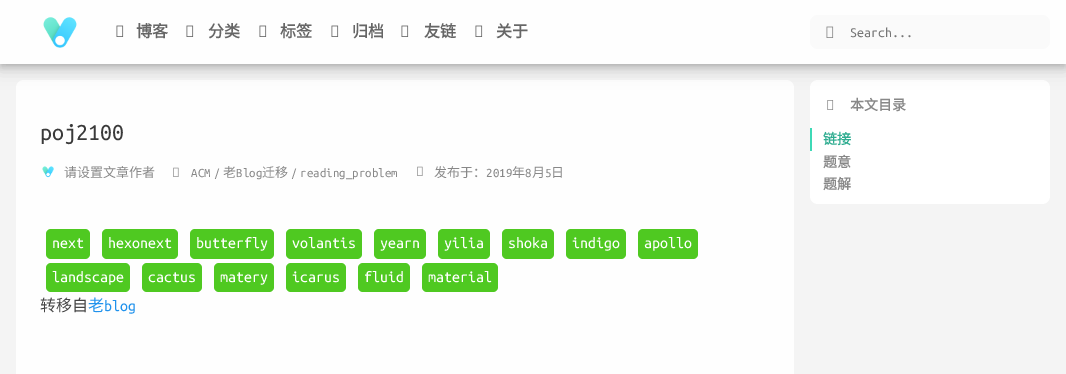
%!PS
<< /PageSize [1066 374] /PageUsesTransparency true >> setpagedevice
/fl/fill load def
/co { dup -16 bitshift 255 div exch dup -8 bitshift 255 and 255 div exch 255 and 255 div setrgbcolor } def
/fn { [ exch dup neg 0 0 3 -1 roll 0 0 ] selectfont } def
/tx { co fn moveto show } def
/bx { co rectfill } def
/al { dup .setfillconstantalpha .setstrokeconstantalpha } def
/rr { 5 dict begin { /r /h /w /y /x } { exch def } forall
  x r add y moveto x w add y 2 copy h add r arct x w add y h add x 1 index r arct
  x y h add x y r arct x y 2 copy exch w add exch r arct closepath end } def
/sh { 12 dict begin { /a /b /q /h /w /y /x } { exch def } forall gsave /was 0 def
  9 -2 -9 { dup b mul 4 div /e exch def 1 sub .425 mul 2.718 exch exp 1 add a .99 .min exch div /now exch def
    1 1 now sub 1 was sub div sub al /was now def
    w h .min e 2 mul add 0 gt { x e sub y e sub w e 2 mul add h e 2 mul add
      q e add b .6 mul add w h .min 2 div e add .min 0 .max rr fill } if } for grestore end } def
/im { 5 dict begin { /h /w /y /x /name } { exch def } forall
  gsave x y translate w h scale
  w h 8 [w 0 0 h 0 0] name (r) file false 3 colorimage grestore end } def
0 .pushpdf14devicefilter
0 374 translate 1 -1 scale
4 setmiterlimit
0 0 1066 374 16#F4F4F4 bx
0.9 al
16#FFFFFF co
16 80 778 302 8 rr fl
1 al
810 80 240 124 8 rr fl
16#000000 co
0 8 1066 64 0 8 .1 sh
0 4 1066 64 0 4 .1 sh
0 2 1066 64 0 2 .1 sh
0 0 1066 64 16#FEFEFE bx
(media/1.raw) 43 17 34 31 im
(media/2.raw) 116 25 8 12 im
(media/2.raw) 186 25 8 12 im
(media/2.raw) 259 25 8 12 im
(media/2.raw) 331 25 8 12 im
(media/2.raw) 401 25 8 12 im
(media/2.raw) 475 25 8 12 im
16#FAFAFA co
810 15 240 34 8 rr fl
(media/3.raw) 826 26 8 12 im
(media/4.raw) 42 166 12 12 im
(media/5.raw) 173 167 6 10 im
(media/5.raw) 417 166 6 10 im
16#4FC921 co
46 229 44 30 5 rr fl
102 229 76 30 5 rr fl
190 229 84 30 5 rr fl
286 229 76 30 5 rr fl
374 229 52 30 5 rr fl
438 229 52 30 5 rr fl
502 229 52 30 5 rr fl
566 229 60 30 5 rr fl
638 229 60 30 5 rr fl
46 263 84 29 5 rr fl
142 263 60 29 5 rr fl
214 263 60 29 5 rr fl
286 263 60 29 5 rr fl
358 263 52 29 5 rr fl
422 263 76 29 5 rr fl
(media/6.raw) 827 100 7 10 im
810 128 2 23 16#3DD9B6 bx
(博客) 136 37 /NotoSansCJKSC-Bold 16 16#666666 tx
(分类) 208 37 /NotoSansCJKSC-Bold 16 16#666666 tx
(标签) 280 37 /NotoSansCJKSC-Bold 16 16#666666 tx
(归档) 352 37 /NotoSansCJKSC-Bold 16 16#666666 tx
(友链) 424 37 /NotoSansCJKSC-Bold 16 16#666666 tx
(关于) 496 37 /NotoSansCJKSC-Bold 16 16#666666 tx
(Search...) 850 37 /UbuntuMono-Regular 14 16#757575 tx
(poj2100) 40 140 /UbuntuMono-Regular 24 16#3A3A3A tx
(请设置文章作者) 64 177 /NotoSansCJKSC-Regular 13 16#888888 tx
(ACM) 191 177 /UbuntuMono-Regular 13 16#888888 tx
(/) 214 177 /UbuntuMono-Regular 12 16#888888 tx
(老) 223 177 /NotoSansCJKSC-Regular 13 16#888888 tx
(Blog) 236 177 /UbuntuMono-Regular 13 16#888888 tx
(迁移) 262 177 /NotoSansCJKSC-Regular 13 16#888888 tx
(/) 291 177 /UbuntuMono-Regular 12 16#888888 tx
(reading_problem) 300 177 /UbuntuMono-Regular 13 16#888888 tx
(发布于：) 434 177 /NotoSansCJKSC-Regular 13 16#888888 tx
(2019) 486 177 /UbuntuMono-Regular 13 16#888888 tx
(年) 512 177 /NotoSansCJKSC-Regular 13 16#888888 tx
(8) 525 177 /UbuntuMono-Regular 13 16#888888 tx
(月) 532 177 /NotoSansCJKSC-Regular 13 16#888888 tx
(5) 545 177 /UbuntuMono-Regular 13 16#888888 tx
(日) 551 177 /NotoSansCJKSC-Regular 13 16#888888 tx
(next) 52 248 /UbuntuMono-Regular 16 16#FFFFFF tx
(hexonext) 108 248 /UbuntuMono-Regular 16 16#FFFFFF tx
(butterfly) 196 248 /UbuntuMono-Regular 16 16#FFFFFF tx
(volantis) 292 248 /UbuntuMono-Regular 16 16#FFFFFF tx
(yearn) 380 248 /UbuntuMono-Regular 16 16#FFFFFF tx
(yilia) 444 248 /UbuntuMono-Regular 16 16#FFFFFF tx
(shoka) 508 248 /UbuntuMono-Regular 16 16#FFFFFF tx
(indigo) 572 248 /UbuntuMono-Regular 16 16#FFFFFF tx
(apollo) 644 248 /UbuntuMono-Regular 16 16#FFFFFF tx
(landscape) 52 282 /UbuntuMono-Regular 16 16#FFFFFF tx
(cactus) 148 282 /UbuntuMono-Regular 16 16#FFFFFF tx
(matery) 220 282 /UbuntuMono-Regular 16 16#FFFFFF tx
(icarus) 292 282 /UbuntuMono-Regular 16 16#FFFFFF tx
(fluid) 364 282 /UbuntuMono-Regular 16 16#FFFFFF tx
(material) 428 282 /UbuntuMono-Regular 16 16#FFFFFF tx
(转移自) 40 311 /NotoSansCJKSC-Regular 16 16#444444 tx
(老) 88 311 /NotoSansCJKSC-Regular 16 16#2092EC tx
(blog) 104 311 /UbuntuMono-Regular 16 16#2092EC tx
(本文目录) 850 110 /NotoSansCJKSC-Bold 14 16#888888 tx
(链接) 823 144 /NotoSansCJKSC-Bold 14 16#30AD91 tx
(题意) 823 167 /NotoSansCJKSC-Bold 14 16#888888 tx
(题解) 823 189 /NotoSansCJKSC-Bold 14 16#888888 tx
.poppdf14devicefilter showpage
